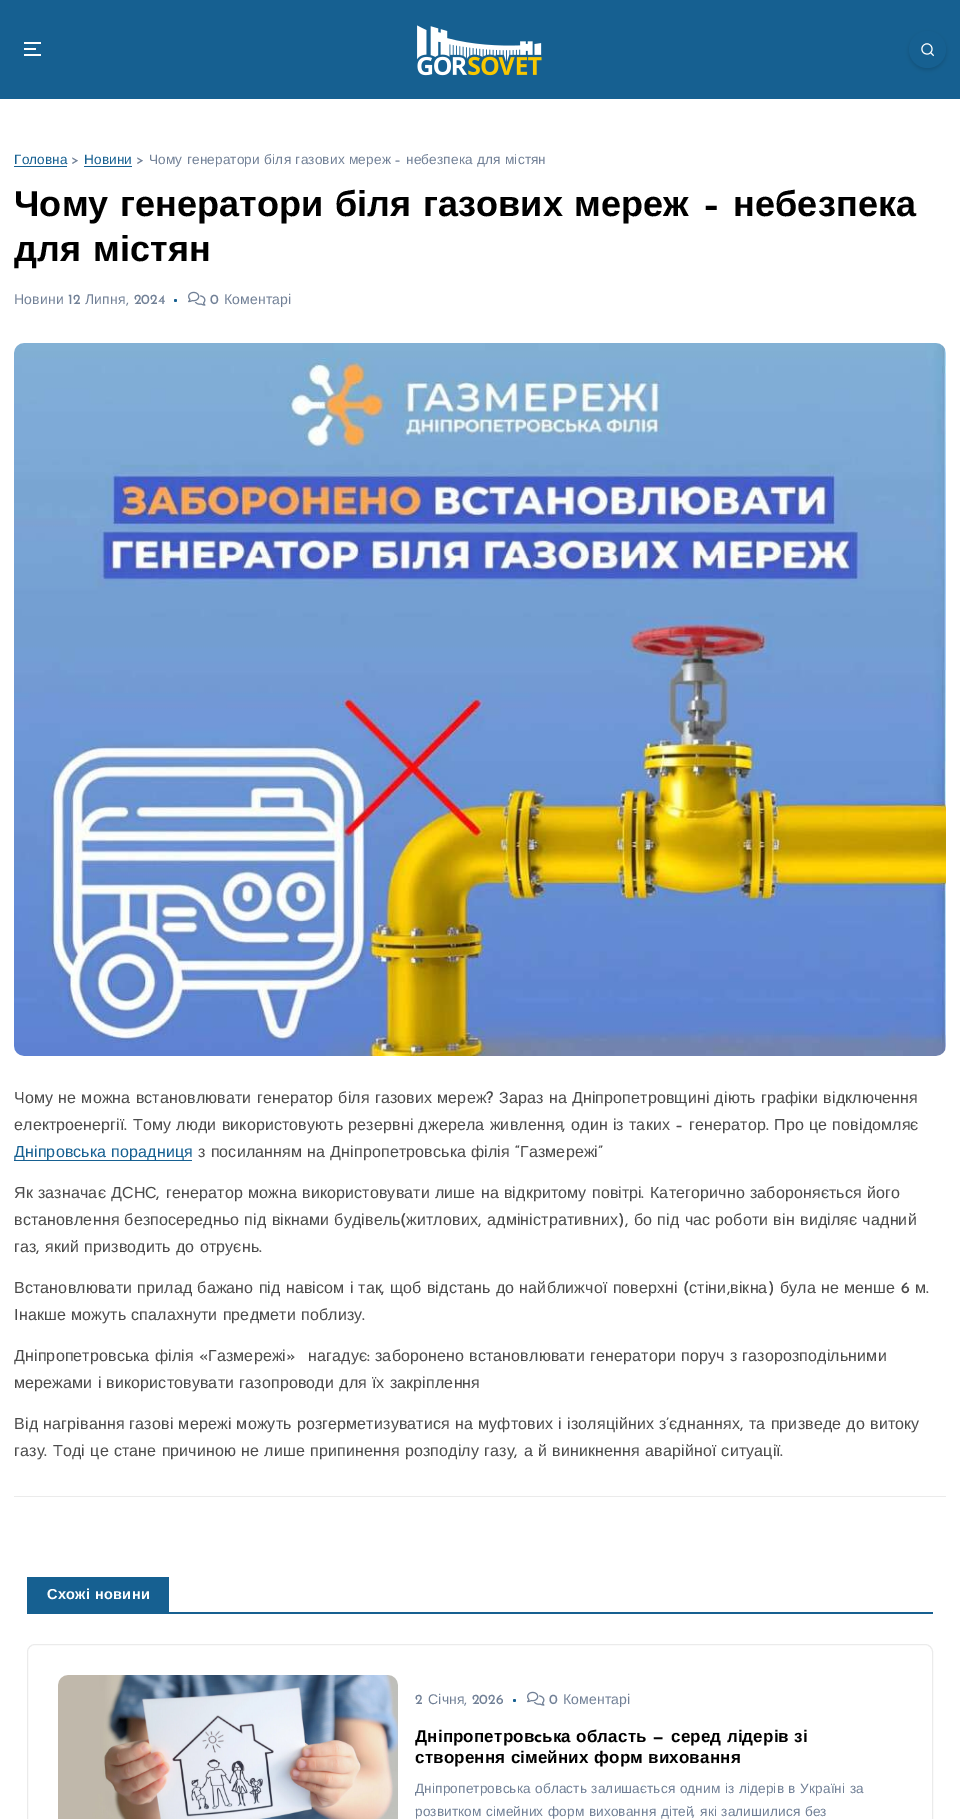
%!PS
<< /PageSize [960 1819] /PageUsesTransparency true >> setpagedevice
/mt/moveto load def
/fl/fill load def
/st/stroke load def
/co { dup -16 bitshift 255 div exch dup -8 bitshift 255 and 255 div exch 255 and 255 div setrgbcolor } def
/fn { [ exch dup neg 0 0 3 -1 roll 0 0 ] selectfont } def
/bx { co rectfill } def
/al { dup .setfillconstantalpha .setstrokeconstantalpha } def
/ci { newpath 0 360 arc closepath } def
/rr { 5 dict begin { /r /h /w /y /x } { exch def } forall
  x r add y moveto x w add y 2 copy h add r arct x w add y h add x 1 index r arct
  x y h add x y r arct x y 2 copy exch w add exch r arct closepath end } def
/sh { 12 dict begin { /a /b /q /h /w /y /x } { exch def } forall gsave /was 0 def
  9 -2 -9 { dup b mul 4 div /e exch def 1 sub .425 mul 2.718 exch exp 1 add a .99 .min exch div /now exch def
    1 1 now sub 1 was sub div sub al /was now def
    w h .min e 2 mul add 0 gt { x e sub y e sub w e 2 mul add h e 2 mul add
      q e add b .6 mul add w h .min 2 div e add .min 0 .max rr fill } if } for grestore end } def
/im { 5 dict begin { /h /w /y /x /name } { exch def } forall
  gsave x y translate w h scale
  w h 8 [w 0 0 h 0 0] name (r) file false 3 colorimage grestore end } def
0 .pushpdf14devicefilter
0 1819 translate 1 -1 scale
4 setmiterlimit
0 0 960 1819 16#FFFFFF bx
0 0 960 99 16#166091 bx
24 42 17 2 16#FFFFFF bx
24 48 12 2 16#FFFFFF bx
24 54 17 2 16#FFFFFF bx
(media/1.raw) 417 25 125 51 im
16#000000 co
909 33 37 37 18.5 2 .15 sh
16#166091 co
927.5 49.5 18.5 ci fl
(media/2.raw) 921 43 13 14 im
14 166 53 1 16#166091 bx
84 166 48 1 16#166091 bx
175.5 300.5 1.5 ci fl
(media/3.raw) 188 291 18 15 im
(media/4.raw) 14 343 932 713 im
14 1160 178 1 16#166091 bx
14 1496 932 1 16#EBEBEB bx
27 1612 906 2 16#166091 bx
27 1577 142 35 16#166091 bx
16#EBEBEB co
27.5 1644.5 905 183 7.5 rr st
(media/5.raw) 58 1675 340 144 im
16#166091 co
514.5 1700.5 1.5 ci fl
(media/3.raw) 527 1691 18 15 im
/LiberationSans-Regular 13.6 fn
14 164 mt .15 0 (Головна) ashow
/JosefinSans-Medium 13.6 fn
16#718096 co
71 164 mt .15 0 (>) ashow
/LiberationSans-Regular 13.6 fn
16#166091 co
84 164 mt .15 0 (Новини) ashow
/JosefinSans-Medium 13.6 fn
16#718096 co
136 164 mt .15 0 (>) ashow
/LiberationSans-Regular 13.6 fn
149 164 mt .5 0 32 .15 0 (Чому генератори біля газових мереж) awidthshow
/JosefinSans-Medium 13.6 fn
394 164 mt .15 0 (–) ashow
/LiberationSans-Regular 13.6 fn
406 164 mt .5 0 32 .15 0 (небезпека для містян) awidthshow
/LiberationSans-Bold 36 fn
16#000000 co
14 216 mt 1 0 32 .15 0 (Чому генератори біля газових мереж) awidthshow
/JosefinSans-Bold 36 fn
702 216 mt .15 0 (–) ashow
/LiberationSans-Bold 36 fn
733 216 mt .15 0 (небезпека) ashow
14 261 mt 2 0 32 .15 0 (для містян) awidthshow
/LiberationSans-Regular 14 fn
16#718096 co
14 304 mt .15 0 (Новини) ashow
/JosefinSans-Medium 14 fn
68 304 mt .15 0 (12) ashow
/LiberationSans-Regular 14 fn
85 304 mt .15 0 (Липня) ashow
/JosefinSans-Medium 14 fn
126 304 mt .15 0 (, 2024) ashow
210 304 mt .15 0 (0) ashow
/LiberationSans-Regular 14 fn
224 304 mt .15 0 (Коментарі) ashow
/LiberationSans-Regular 16 fn
16#4B4B4B co
14 1103 mt .5 0 32 .15 0 (Чому не можна встановлювати генератор біля газових мереж) awidthshow
/JosefinSans-Medium 16 fn
486 1103 mt .15 0 (?) ashow
/LiberationSans-Regular 16 fn
499 1103 mt .5 0 32 .15 0 (Зараз на Дніпропетровщині діють графіки відключення) awidthshow
14 1130 mt .15 0 (електроенергії) ashow
133 1130 mt .5 0 32 .15 0 (Тому люди використовують резервні джерела живлення) awidthshow
571 1130 mt .5 0 32 .15 0 (один із таких) awidthshow
/JosefinSans-Medium 16 fn
675 1130 mt .15 0 (–) ashow
/LiberationSans-Regular 16 fn
689 1130 mt .15 0 (генератор) ashow
774 1130 mt .5 0 32 .15 0 (Про це повідомляє) awidthshow
/JosefinSans-Medium 16 fn
124 1130 mt .15 0 (.) ashow
562 1130 mt .15 0 (,) ashow
766 1130 mt .15 0 (.) ashow
/LiberationSans-Regular 16 fn
16#166091 co
14 1157 mt .5 0 32 .15 0 (Дніпровська порадниця) awidthshow
16#4B4B4B co
198 1157 mt .5 0 32 .15 0 (з посиланням на Дніпропетровська філія) awidthshow
/JosefinSans-Medium 16 fn
515 1157 mt .15 0 (“) ashow
/LiberationSans-Regular 16 fn
520 1157 mt .15 0 (Газмережі) ashow
/JosefinSans-Medium 16 fn
598 1157 mt .15 0 (”) ashow
/LiberationSans-Regular 16 fn
14 1198 mt .5 0 32 .15 0 (Як зазначає ДСНС) awidthshow
/JosefinSans-Medium 16 fn
156 1198 mt .15 0 (,) ashow
/LiberationSans-Regular 16 fn
166 1198 mt .5 0 32 .15 0 (генератор можна використовувати лише на відкритому повітрі) awidthshow
/JosefinSans-Medium 16 fn
641 1198 mt .15 0 (.) ashow
/LiberationSans-Regular 16 fn
650 1198 mt .5 0 32 .15 0 (Категорично забороняється його) awidthshow
14 1225 mt .5 0 32 .15 0 (встановлення безпосередньо під вікнами будівель) awidthshow
/JosefinSans-Medium 16 fn
400 1225 mt .15 0 (\() ashow
/LiberationSans-Regular 16 fn
406 1225 mt .15 0 (житлових) ashow
/JosefinSans-Medium 16 fn
478 1225 mt .15 0 (,) ashow
/LiberationSans-Regular 16 fn
487 1225 mt .15 0 (адміністративних) ashow
/JosefinSans-Medium 16 fn
618 1225 mt .15 0 (\),) ashow
/LiberationSans-Regular 16 fn
634 1225 mt .5 0 32 .15 0 (бо під час роботи він виділяє чадний) awidthshow
14 1252 mt .15 0 (газ) ashow
/JosefinSans-Medium 16 fn
36 1252 mt .15 0 (,) ashow
/LiberationSans-Regular 16 fn
45 1252 mt .5 0 32 .15 0 (який призводить до отруєнь) awidthshow
/JosefinSans-Medium 16 fn
259 1252 mt .15 0 (.) ashow
/LiberationSans-Regular 16 fn
14 1293 mt .5 0 32 .15 0 (Встановлювати прилад бажано під навісом і так) awidthshow
/JosefinSans-Medium 16 fn
381 1293 mt .15 0 (,) ashow
/LiberationSans-Regular 16 fn
390 1293 mt .5 0 32 .15 0 (щоб відстань до найближчої поверхні) awidthshow
/JosefinSans-Medium 16 fn
683 1293 mt .15 0 (\() ashow
/LiberationSans-Regular 16 fn
689 1293 mt .15 0 (стіни) ashow
/JosefinSans-Medium 16 fn
727 1293 mt .15 0 (,) ashow
/LiberationSans-Regular 16 fn
730 1293 mt .15 0 (вікна) ashow
/JosefinSans-Medium 16 fn
768 1293 mt .15 0 (\)) ashow
/LiberationSans-Regular 16 fn
780 1293 mt .5 0 32 .15 0 (була не менше) awidthshow
/JosefinSans-Medium 16 fn
901 1293 mt .15 0 (6) ashow
/LiberationSans-Regular 16 fn
915 1293 mt .15 0 (м) ashow
/JosefinSans-Medium 16 fn
926 1293 mt .15 0 (.) ashow
/LiberationSans-Regular 16 fn
14 1320 mt .5 0 32 .15 0 (Інакше можуть спалахнути предмети поблизу) awidthshow
/JosefinSans-Medium 16 fn
362 1320 mt .15 0 (.) ashow
/LiberationSans-Regular 16 fn
14 1361 mt .5 0 32 .15 0 (Дніпропетровська філія) awidthshow
/JosefinSans-Medium 16 fn
199 1361 mt .15 0 («) ashow
/LiberationSans-Regular 16 fn
208 1361 mt .15 0 (Газмережі) ashow
/JosefinSans-Medium 16 fn
286 1361 mt .15 0 (») ashow
/LiberationSans-Regular 16 fn
308 1361 mt .15 0 (нагадує) ashow
/JosefinSans-Medium 16 fn
367 1361 mt .15 0 (:) ashow
/LiberationSans-Regular 16 fn
375 1361 mt .5 0 32 .15 0 (заборонено встановлювати генератори поруч з газорозподільними) awidthshow
14 1388 mt .5 0 32 .15 0 (мережами і використовувати газопроводи для їх закріплення) awidthshow
14 1429 mt .5 0 32 .15 0 (Від нагрівання газові мережі можуть розгерметизуватися на муфтових і ізоляційних з) awidthshow
/JosefinSans-Medium 16 fn
666 1429 mt .15 0 (’) ashow
/LiberationSans-Regular 16 fn
669 1429 mt .15 0 (єднаннях) ashow
/JosefinSans-Medium 16 fn
740 1429 mt .15 0 (,) ashow
/LiberationSans-Regular 16 fn
749 1429 mt .5 0 32 .15 0 (та призведе до витоку) awidthshow
14 1456 mt .15 0 (газу) ashow
/JosefinSans-Medium 16 fn
44 1456 mt .15 0 (.) ashow
/LiberationSans-Regular 16 fn
53 1456 mt .5 0 32 .15 0 (Тоді це стане причиною не лише припинення розподілу газу) awidthshow
/JosefinSans-Medium 16 fn
514 1456 mt .15 0 (,) ashow
/LiberationSans-Regular 16 fn
524 1456 mt .5 0 32 .15 0 (а й виникнення аварійної ситуації) awidthshow
/JosefinSans-Medium 16 fn
780 1456 mt .15 0 (.) ashow
/LiberationSans-Bold 14.5 fn
16#FFFFFF co
47 1599 mt 1 0 32 .25 0 (Схожі новини) awidthshow
/JosefinSans-Medium 14 fn
16#718096 co
415 1704 mt .15 0 (2) ashow
/LiberationSans-Regular 14 fn
428 1704 mt .15 0 (Січня) ashow
/JosefinSans-Medium 14 fn
464 1704 mt .15 0 (, 2026) ashow
549 1704 mt .15 0 (0) ashow
/LiberationSans-Regular 14 fn
563 1704 mt .15 0 (Коментарі) ashow
/LiberationSans-Bold 17 fn
16#000000 co
415 1742 mt .15 0 (Дніпропетров) ashow
/JosefinSans-Bold 17 fn
534 1742 mt .15 0 (c) ashow
/LiberationSans-Bold 17 fn
542 1742 mt .5 0 32 .15 0 (ька область) awidthshow
/JosefinSans-Bold 17 fn
652 1742 mt .15 0 (—) ashow
/LiberationSans-Bold 17 fn
671 1742 mt .5 0 32 .15 0 (серед лідерів зі) awidthshow
415 1763 mt .5 0 32 .15 0 (створення сімейних форм виховання) awidthshow
/LiberationSans-Regular 13.6 fn
16#718096 co
415 1793 mt .5 0 32 .15 0 (Дніпропетровська область залишається одним із лідерів в Україні за) awidthshow
415 1816 mt .5 0 32 .15 0 (розвитком сімейних форм виховання дітей) awidthshow
/JosefinSans-Medium 13.6 fn
692 1816 mt .15 0 (,) ashow
/LiberationSans-Regular 13.6 fn
700 1816 mt .5 0 32 .15 0 (які залишилися без) awidthshow
.poppdf14devicefilter showpage
